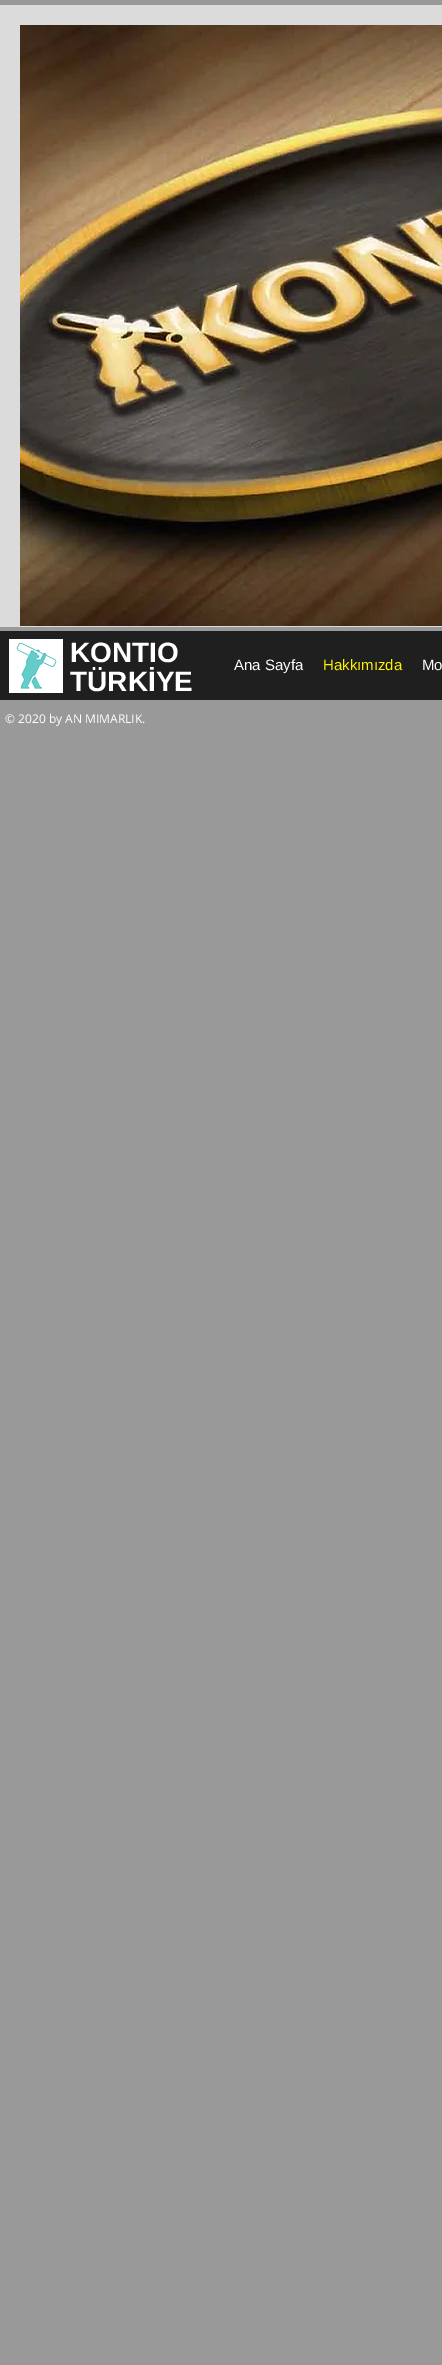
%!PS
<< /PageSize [442 2365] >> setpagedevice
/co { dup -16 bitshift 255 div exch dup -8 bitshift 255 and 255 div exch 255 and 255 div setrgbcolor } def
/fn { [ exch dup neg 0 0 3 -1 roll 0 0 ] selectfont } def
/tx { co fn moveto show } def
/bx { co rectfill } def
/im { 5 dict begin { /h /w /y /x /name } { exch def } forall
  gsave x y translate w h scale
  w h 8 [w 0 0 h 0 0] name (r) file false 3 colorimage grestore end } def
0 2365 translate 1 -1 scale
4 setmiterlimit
0 0 442 2365 16#999999 bx
0 5 442 622 16#DBDBDB bx
(media/1.raw) 20 25 422 601 im
0 631 442 69 16#1F1F1F bx
(media/2.raw) 9 639 54 54 im
(KONTIO) 70 662 /LiberationSans-Bold 28 16#FFFFFF tx
(TÜRKİYE) 70 691 /LiberationSans-Bold 28 16#FFFFFF tx
(Ana Sayfa) 234 670 /LiberationSans-Regular 15 16#FFFFFF tx
(Hakkımızda) 323 670 /LiberationSans-Regular 15 16#FFF200 tx
(Mo) 422 670 /LiberationSans-Regular 15 16#FFFFFF tx
(© 2020 by AN MIMARLIK.) 5 723 /OpenSans-Regular 12 16#FFFFFF tx
showpage
